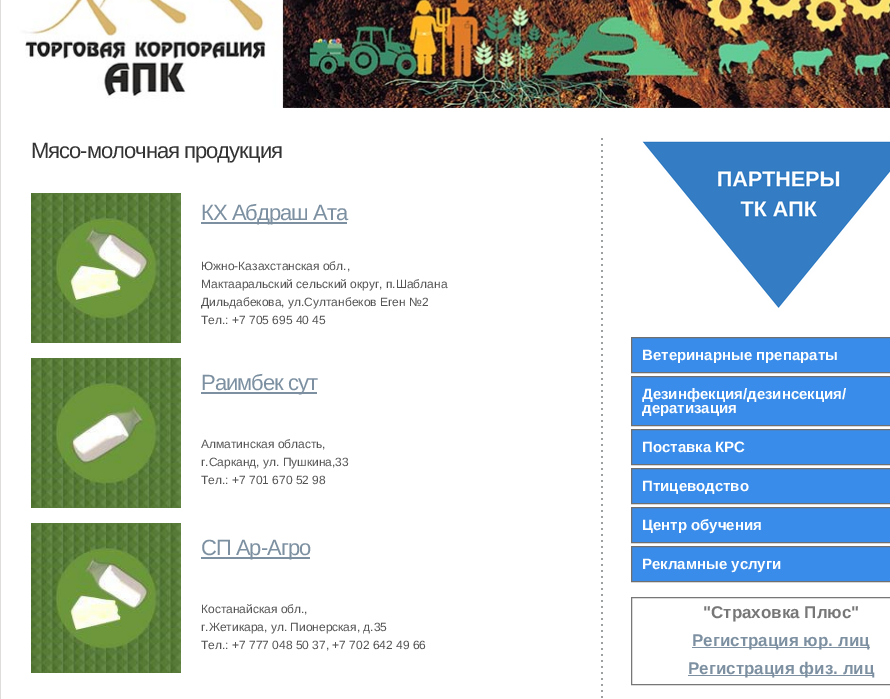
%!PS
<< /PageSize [890 699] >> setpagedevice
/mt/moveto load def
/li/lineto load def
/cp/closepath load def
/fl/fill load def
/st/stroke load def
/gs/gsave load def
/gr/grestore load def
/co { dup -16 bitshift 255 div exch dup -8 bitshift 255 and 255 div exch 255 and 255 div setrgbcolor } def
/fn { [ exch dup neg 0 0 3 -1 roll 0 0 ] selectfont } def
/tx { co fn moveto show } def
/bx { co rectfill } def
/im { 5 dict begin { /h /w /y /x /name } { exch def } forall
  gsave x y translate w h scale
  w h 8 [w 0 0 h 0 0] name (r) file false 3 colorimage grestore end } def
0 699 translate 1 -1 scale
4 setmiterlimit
0 0 890 699 16#FFFFFF bx
0 0 1 699 16#DFDCDC bx
(media/1.raw) 1 0 889 108 im
(media/2.raw) 31 193 150 150 im
201 222 146 2 16#7C90A1 bx
(media/3.raw) 31 358 150 150 im
201 392 116 2 16#7C90A1 bx
(media/2.raw) 31 523 150 150 im
201 557 109 2 16#7C90A1 bx
(media/4.raw) 601 138 2 560 im
(media/5.raw) 642 141 248 167 im
16#398CEA co
631.5 337.5 mt 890.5 337.5 li 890.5 372.5 li 631.5 372.5 li cp gs fl gr
16#6F6F6F co
st
16#398CEA co
631.5 376.5 mt 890.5 376.5 li 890.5 425.5 li 631.5 425.5 li cp gs fl gr
16#6F6F6F co
st
16#398CEA co
631.5 429.5 mt 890.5 429.5 li 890.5 464.5 li 631.5 464.5 li cp gs fl gr
16#6F6F6F co
st
16#398CEA co
631.5 468.5 mt 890.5 468.5 li 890.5 503.5 li 631.5 503.5 li cp gs fl gr
16#6F6F6F co
st
16#398CEA co
631.5 507.5 mt 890.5 507.5 li 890.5 542.5 li 631.5 542.5 li cp gs fl gr
16#6F6F6F co
st
16#398CEA co
631.5 546.5 mt 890.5 546.5 li 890.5 581.5 li 631.5 581.5 li cp gs fl gr
16#6F6F6F co
st
16#777777 co
631.5 597.5 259 87 rectstroke
692 647 178 1 16#7C90A1 bx
688 675 186 1 16#7C90A1 bx
/LiberationSans-Regular 22 fn
16#333333 co
31 158 mt -1 0 (Мясо-молочная продукция) ashow
16#7C90A1 co
201 220 mt -1 0 (КХ Абдраш Ата) ashow
(Южно-Казахстанская обл.,) 201 270 /LiberationSans-Regular 12 16#555555 tx
(Мактааральский сельский округ, п.Шаблана) 201 288 /LiberationSans-Regular 12 16#555555 tx
(Дильдабекова, ул.Султанбеков Еген №2) 201 306 /LiberationSans-Regular 12 16#555555 tx
(Тел.: +7 705 695 40 45) 201 324 /LiberationSans-Regular 12 16#555555 tx
/LiberationSans-Regular 22 fn
16#7C90A1 co
201 390 mt -1 0 (Раимбек сут) ashow
(Алматинская область,) 201 448 /LiberationSans-Regular 12 16#555555 tx
(г.Сарканд, ул. Пушкина,33) 201 466 /LiberationSans-Regular 12 16#555555 tx
(Тел.: +7 701 670 52 98) 201 484 /LiberationSans-Regular 12 16#555555 tx
/LiberationSans-Regular 22 fn
16#7C90A1 co
201 555 mt -1 0 (СП Ар-Агро) ashow
(Костанайская обл.,) 201 613 /LiberationSans-Regular 12 16#555555 tx
(г.Жетикара, ул. Пионерская, д.35) 201 631 /LiberationSans-Regular 12 16#555555 tx
(Тел.: +7 777 048 50 37, +7 702 642 49 66) 201 649 /LiberationSans-Regular 12 16#555555 tx
(Ветеринарные препараты) 642 360 /LiberationSans-Bold 15 16#FFFFFF tx
(Дезинфекция/дезинсекция/) 642 399 /LiberationSans-Bold 15 16#FFFFFF tx
(дератизация) 642 413 /LiberationSans-Bold 15 16#FFFFFF tx
(Поставка КРС) 642 452 /LiberationSans-Bold 15 16#FFFFFF tx
(Птицеводство) 642 491 /LiberationSans-Bold 15 16#FFFFFF tx
(Центр обучения) 642 530 /LiberationSans-Bold 15 16#FFFFFF tx
(Рекламные услуги) 642 569 /LiberationSans-Bold 15 16#FFFFFF tx
("Страховка Плюс") 703 618 /LiberationSans-Bold 17 16#777777 tx
(Регистрация юр. лиц) 692 646 /LiberationSans-Bold 17 16#7C90A1 tx
(Регистрация физ. лиц) 688 674 /LiberationSans-Bold 17 16#7C90A1 tx
showpage
